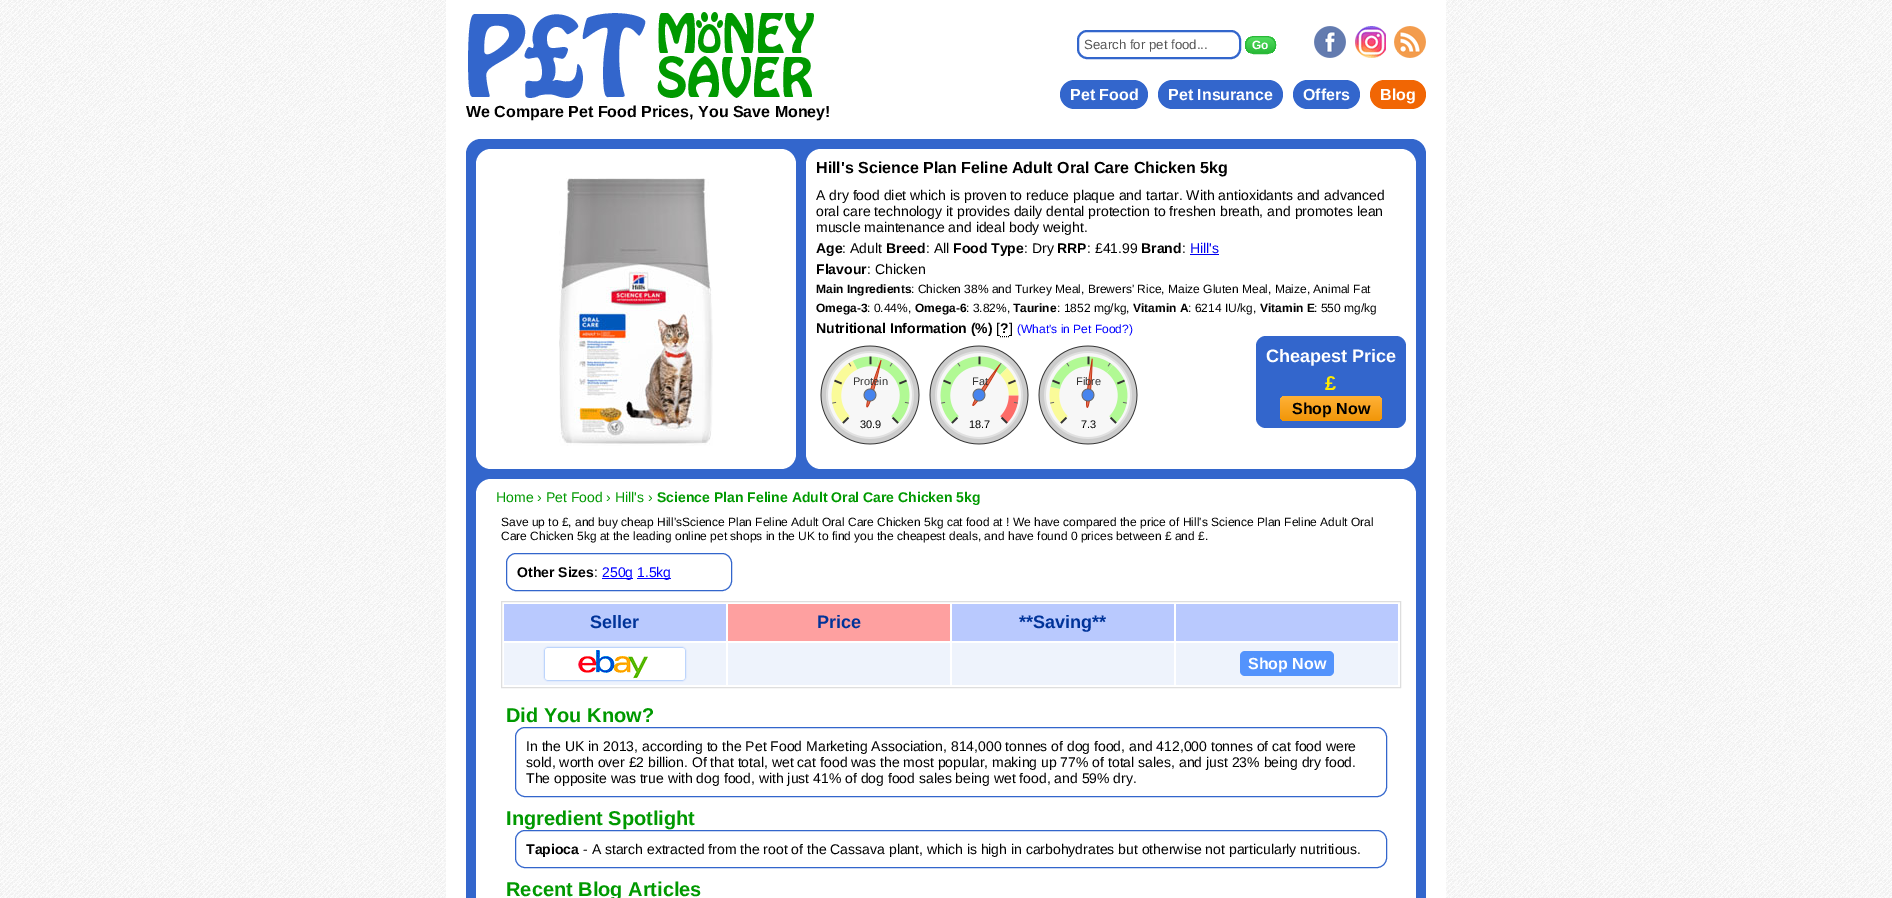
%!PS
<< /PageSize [1892 898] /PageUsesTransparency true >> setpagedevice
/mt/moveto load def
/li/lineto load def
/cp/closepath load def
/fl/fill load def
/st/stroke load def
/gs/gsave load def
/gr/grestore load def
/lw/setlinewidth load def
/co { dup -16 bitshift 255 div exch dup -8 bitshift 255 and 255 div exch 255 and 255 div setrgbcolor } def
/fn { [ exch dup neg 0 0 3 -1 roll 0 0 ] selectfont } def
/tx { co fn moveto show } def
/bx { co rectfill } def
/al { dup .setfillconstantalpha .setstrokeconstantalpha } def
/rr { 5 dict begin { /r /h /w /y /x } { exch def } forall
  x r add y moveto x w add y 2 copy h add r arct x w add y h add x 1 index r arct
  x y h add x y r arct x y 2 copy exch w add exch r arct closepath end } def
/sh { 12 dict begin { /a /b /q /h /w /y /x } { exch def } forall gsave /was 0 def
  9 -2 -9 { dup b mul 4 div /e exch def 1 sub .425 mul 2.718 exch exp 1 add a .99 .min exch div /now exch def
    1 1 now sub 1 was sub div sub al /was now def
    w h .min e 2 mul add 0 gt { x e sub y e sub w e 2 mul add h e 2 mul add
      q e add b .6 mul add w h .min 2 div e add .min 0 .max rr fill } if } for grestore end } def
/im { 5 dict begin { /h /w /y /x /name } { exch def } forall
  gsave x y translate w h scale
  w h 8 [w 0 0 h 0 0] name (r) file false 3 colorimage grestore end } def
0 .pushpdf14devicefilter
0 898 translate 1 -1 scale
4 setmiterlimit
0 0 1892 898 16#FFFFFF bx
(media/1.raw) 0 0 1892 898 im
446 0 1000 898 16#FFFFFF bx
(media/2.raw) 468 12 346 86 im
16#3366CC co
2 lw
1078 31 162 27 9 rr st
gs
1245 36 31 18 9 rr clip newpath
gs 1245 37 mt 1276 37 li 1276 53 li 1245 53 li cp clip newpath
<< /ShadingType 2 /ColorSpace /DeviceRGB /Coords [1261 37 1261 53] /Extend [true true] /Function << /FunctionType 2 /Domain [0 1] /C0 [.325 .871 .376] /C1 [.161 .725 .216] /N 1 >> >> shfill gr
gr
16#29B937 co
1 lw
1245.5 36.5 30 17 8.5 rr st
(media/3.raw) 1314 26 32 32 im
(media/4.raw) 1355 26 31 32 im
(media/5.raw) 1394 26 32 32 im
16#3366CC co
1060 80 88 29 14.5 rr fl
1158 80 125 29 14.5 rr fl
1293 80 67 29 14.5 rr fl
16#F16604 co
1370 80 56 29 14.5 rr fl
16#3366CC co
466 139 960 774 15 rr fl
16#FFFFFF co
476 149 320 320 15 rr fl
(media/6.raw) 559 178 154 268 im
806 149 610 320 15 rr fl
1190 254 29 1 16#0000EE bx
16#000000 co
[1 1] 0 setdash
1000 336.5 mt 1009 336.5 li st
(media/7.raw) 820 345 100 100 im
(media/8.raw) 929 345 100 100 im
(media/9.raw) 1038 345 100 100 im
16#3366CC co
1256 336 150 92 10 rr fl
gs 1280 396 102 25 5 rr clip newpath
<< /ShadingType 2 /ColorSpace /DeviceRGB /Coords [1331 396 1331 421] /Extend [true true] /Function << /FunctionType 2 /Domain [0 1] /C0 [1 .694 .216] /C1 [.945 .588 .031] /N 1 >> >> shfill gr
16#FFFFFF co
476 479 940 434 15 rr fl
16#3366CC co
[] 0 setdash
506.5 553.5 225 37 9.5 rr st
602 578 31 1 16#0000FF bx
637 578 34 1 16#0000FF bx
16#DEDEDE co
501.5 601.5 899 86 rectstroke
504 604 222 37 16#B9C9FE bx
728 604 222 37 16#FEA0A0 bx
952 604 222 37 16#B9C9FE bx
1176 604 222 37 16#B9C9FE bx
504 643 222 42 16#EEF3FC bx
16#5393FC co
545 648 140 32 3 1 1 sh
(media/10.raw) 545 648 140 32 im
728 643 222 42 16#EEF3FC bx
952 643 222 42 16#EEF3FC bx
1176 643 222 42 16#EEF3FC bx
16#5393FC co
1240 651 94 25 5 rr fl
16#3366CC co
515.5 727.5 871 69 9.5 rr st
515.5 830.5 871 37 9.5 rr st
(Search for pet food...) 1084 49 /LiberationSans-Regular 13.25 16#555555 tx
(Go) 1252 49 /LiberationSans-Bold 12 16#FFFFFF tx
(Pet Food) 1070 100 /LiberationSans-Bold 16 16#FFFFFF tx
(Pet Insurance) 1168 100 /LiberationSans-Bold 16 16#FFFFFF tx
(Offers) 1303 100 /LiberationSans-Bold 16 16#FFFFFF tx
(Blog) 1380 100 /LiberationSans-Bold 16 16#FFFFFF tx
(We Compare Pet Food Prices, You Save Money!) 466 117 /LiberationSans-Bold 16 16#000000 tx
(Hill's Science Plan Feline Adult Oral Care Chicken 5kg) 816 173 /LiberationSans-Bold 16 16#000000 tx
(A dry food diet which is proven to reduce plaque and tartar. With antioxidants and advanced) 816 200 /LiberationSans-Regular 14 16#000000 tx
(oral care technology it provides daily dental protection to freshen breath, and promotes lean) 816 216 /LiberationSans-Regular 14 16#000000 tx
(muscle maintenance and ideal body weight.) 816 232 /LiberationSans-Regular 14 16#000000 tx
(Age) 816 253 /LiberationSans-Bold 14 16#000000 tx
(: Adult) 842 253 /LiberationSans-Regular 14 16#000000 tx
(Breed) 886 253 /LiberationSans-Bold 14 16#000000 tx
(: All) 926 253 /LiberationSans-Regular 14 16#000000 tx
(Food Type) 953 253 /LiberationSans-Bold 14 16#000000 tx
(: Dry) 1024 253 /LiberationSans-Regular 14 16#000000 tx
(RRP) 1057 253 /LiberationSans-Bold 14 16#000000 tx
(: £41.99) 1087 253 /LiberationSans-Regular 14 16#000000 tx
(Brand) 1141 253 /LiberationSans-Bold 14 16#000000 tx
(:) 1182 253 /LiberationSans-Regular 14 16#000000 tx
(Hill's) 1190 253 /LiberationSans-Regular 14 16#0000EE tx
(Flavour) 816 274 /LiberationSans-Bold 14 16#000000 tx
(: Chicken) 867 274 /LiberationSans-Regular 14 16#000000 tx
(Main Ingredients) 816 293 /LiberationSans-Bold 12 16#000000 tx
(: Chicken 38% and Turkey Meal, Brewers' Rice, Maize Gluten Meal, Maize, Animal Fat) 911 293 /LiberationSans-Regular 12 16#000000 tx
(Omega-3) 816 312 /LiberationSans-Bold 12 16#000000 tx
(: 0.44%,) 867 312 /LiberationSans-Regular 12 16#000000 tx
(Omega-6) 915 312 /LiberationSans-Bold 12 16#000000 tx
(: 3.82%,) 966 312 /LiberationSans-Regular 12 16#000000 tx
(Taurine) 1013 312 /LiberationSans-Bold 12 16#000000 tx
(: 1852 mg/kg,) 1057 312 /LiberationSans-Regular 12 16#000000 tx
(Vitamin A) 1133 312 /LiberationSans-Bold 12 16#000000 tx
(: 6214 IU/kg,) 1188 312 /LiberationSans-Regular 12 16#000000 tx
(Vitamin E) 1260 312 /LiberationSans-Bold 12 16#000000 tx
(: 550 mg/kg) 1314 312 /LiberationSans-Regular 12 16#000000 tx
(Nutritional Information \(%\)) 816 333 /LiberationSans-Bold 14 16#000000 tx
([) 996 333 /LiberationSans-Regular 14 16#000000 tx
(?) 1000 333 /LiberationSans-Bold 14 16#000000 tx
(]) 1009 333 /LiberationSans-Regular 14 16#000000 tx
(\(What's in Pet Food?\)) 1017 333 /LiberationSans-Regular 12 16#0000FF tx
(Protein) 853 385 /LiberationSans-Regular 11 16#333333 tx
(30.9) 860 428 /LiberationSans-Regular 11 16#000000 tx
(Fat) 972 385 /LiberationSans-Regular 11 16#333333 tx
(18.7) 969 428 /LiberationSans-Regular 11 16#000000 tx
(Fibre) 1076 385 /LiberationSans-Regular 11 16#333333 tx
(7.3) 1081 428 /LiberationSans-Regular 11 16#000000 tx
(Cheapest Price) 1266 362 /LiberationSans-Bold 18 16#FFFFFF tx
(£) 1325 390 /LiberationSans-Bold 20 16#FFEA00 tx
(Shop Now) 1292 414 /LiberationSans-Bold 16 16#000000 tx
(Home › Pet Food › Hill's ›) 496 502 /LiberationSans-Regular 14 16#009900 tx
(Science Plan Feline Adult Oral Care Chicken 5kg) 657 502 /LiberationSans-Bold 14 16#009900 tx
(Save up to £, and buy cheap Hill'sScience Plan Feline Adult Oral Care Chicken 5kg cat food at ! We have compared the price of Hill's Science Plan Feline Adult Oral) 501 526 /LiberationSans-Regular 12 16#000000 tx
(Care Chicken 5kg at the leading online pet shops in the UK to find you the cheapest deals, and have found 0 prices between £ and £.) 501 540 /LiberationSans-Regular 12 16#000000 tx
(Other Sizes) 517 577 /LiberationSans-Bold 14 16#000000 tx
(:) 594 577 /LiberationSans-Regular 14 16#000000 tx
(250g) 602 577 /LiberationSans-Regular 14 16#0000FF tx
(1.5kg) 637 577 /LiberationSans-Regular 14 16#0000FF tx
(Seller) 590 628 /LiberationSans-Bold 18 16#003399 tx
(Price) 817 628 /LiberationSans-Bold 18 16#003399 tx
(**Saving**) 1019 628 /LiberationSans-Bold 18 16#003399 tx
(Shop Now) 1248 669 /LiberationSans-Bold 16 16#FFFFFF tx
(Did You Know?) 506 722 /LiberationSans-Bold 20 16#009900 tx
(In the UK in 2013, according to the Pet Food Marketing Association, 814,000 tonnes of dog food, and 412,000 tonnes of cat food were) 526 751 /LiberationSans-Regular 14 16#000000 tx
(sold, worth over £2 billion. Of that total, wet cat food was the most popular, making up 77% of total sales, and just 23% being dry food.) 526 767 /LiberationSans-Regular 14 16#000000 tx
(The opposite was true with dog food, with just 41% of dog food sales being wet food, and 59% dry.) 526 783 /LiberationSans-Regular 14 16#000000 tx
(Ingredient Spotlight) 506 825 /LiberationSans-Bold 20 16#009900 tx
(Tapioca) 526 854 /LiberationSans-Bold 14 16#000000 tx
(- A starch extracted from the root of the Cassava plant, which is high in carbohydrates but otherwise not particularly nutritious.) 583 854 /LiberationSans-Regular 14 16#000000 tx
(Recent Blog Articles) 506 896 /LiberationSans-Bold 20 16#009900 tx
.poppdf14devicefilter showpage
